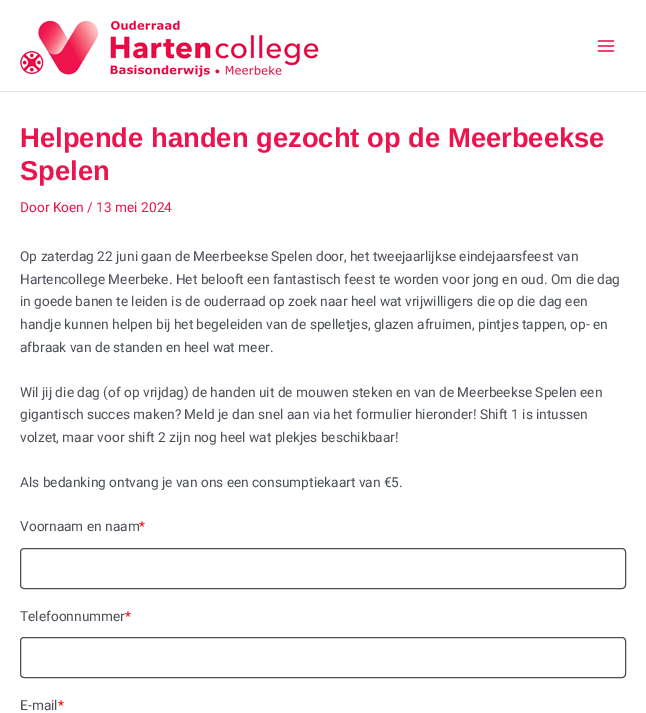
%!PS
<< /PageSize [646 713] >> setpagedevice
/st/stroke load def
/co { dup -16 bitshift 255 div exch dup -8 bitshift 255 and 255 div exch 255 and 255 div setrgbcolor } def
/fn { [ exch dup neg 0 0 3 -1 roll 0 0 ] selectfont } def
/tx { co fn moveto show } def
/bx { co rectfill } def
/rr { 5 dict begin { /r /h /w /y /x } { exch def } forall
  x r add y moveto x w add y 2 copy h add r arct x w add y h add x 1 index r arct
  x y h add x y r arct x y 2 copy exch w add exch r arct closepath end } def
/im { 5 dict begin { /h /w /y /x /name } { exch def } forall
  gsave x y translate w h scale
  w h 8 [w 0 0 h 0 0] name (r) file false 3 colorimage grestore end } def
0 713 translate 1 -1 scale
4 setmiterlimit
0 0 646 713 16#FFFFFF bx
0 91 646 1 16#E5E5E5 bx
(media/1.raw) 20 20 299 57 im
(media/2.raw) 597 40 18 12 im
16#4B4F58 co
20.5 548.5 605 40 3.5 rr st
20.5 637.5 605 40 3.5 rr st
(Helpende handen gezocht op de Meerbeekse) 20 147 /LiberationSans-Bold 27.4 16#EC144D tx
(Spelen) 20 180 /LiberationSans-Bold 27.4 16#EC144D tx
(Door Koen / 13 mei 2024) 20 212 /Roboto-Regular 13.7 16#EC144D tx
(Op zaterdag 22 juni gaan de Meerbeekse Spelen door, het tweejaarlijkse eindejaarsfeest van) 20 261 /Roboto-Regular 13.7 16#4B4F58 tx
(Hartencollege Meerbeke. Het belooft een fantastisch feest te worden voor jong en oud. Om die dag) 20 284 /Roboto-Regular 13.7 16#4B4F58 tx
(in goede banen te leiden is de ouderraad op zoek naar heel wat vrijwilligers die op die dag een) 20 306 /Roboto-Regular 13.7 16#4B4F58 tx
(handje kunnen helpen bij het begeleiden van de spelletjes, glazen afruimen, pintjes tappen, op- en) 20 329 /Roboto-Regular 13.7 16#4B4F58 tx
(afbraak van de standen en heel wat meer.) 20 352 /Roboto-Regular 13.7 16#4B4F58 tx
(Wil jij die dag \(of op vrijdag\) de handen uit de mouwen steken en van de Meerbeekse Spelen een) 20 397 /Roboto-Regular 13.7 16#4B4F58 tx
(gigantisch succes maken? Meld je dan snel aan via het formulier hieronder! Shift 1 is intussen) 20 419 /Roboto-Regular 13.7 16#4B4F58 tx
(volzet, maar voor shift 2 zijn nog heel wat plekjes beschikbaar!) 20 442 /Roboto-Regular 13.7 16#4B4F58 tx
(Als bedanking ontvang je van ons een consumptiekaart van €5.) 20 487 /Roboto-Regular 13.7 16#4B4F58 tx
(Voornaam en naam) 20 531 /Roboto-Regular 13.7 16#4B4F58 tx
(*) 139 531 /Roboto-Regular 13.7 16#FF0000 tx
(Telefoonnummer) 20 621 /Roboto-Regular 13.7 16#4B4F58 tx
(*) 125 621 /Roboto-Regular 13.7 16#FF0000 tx
(E-mail) 20 710 /Roboto-Regular 13.7 16#4B4F58 tx
(*) 58 710 /Roboto-Regular 13.7 16#FF0000 tx
showpage
